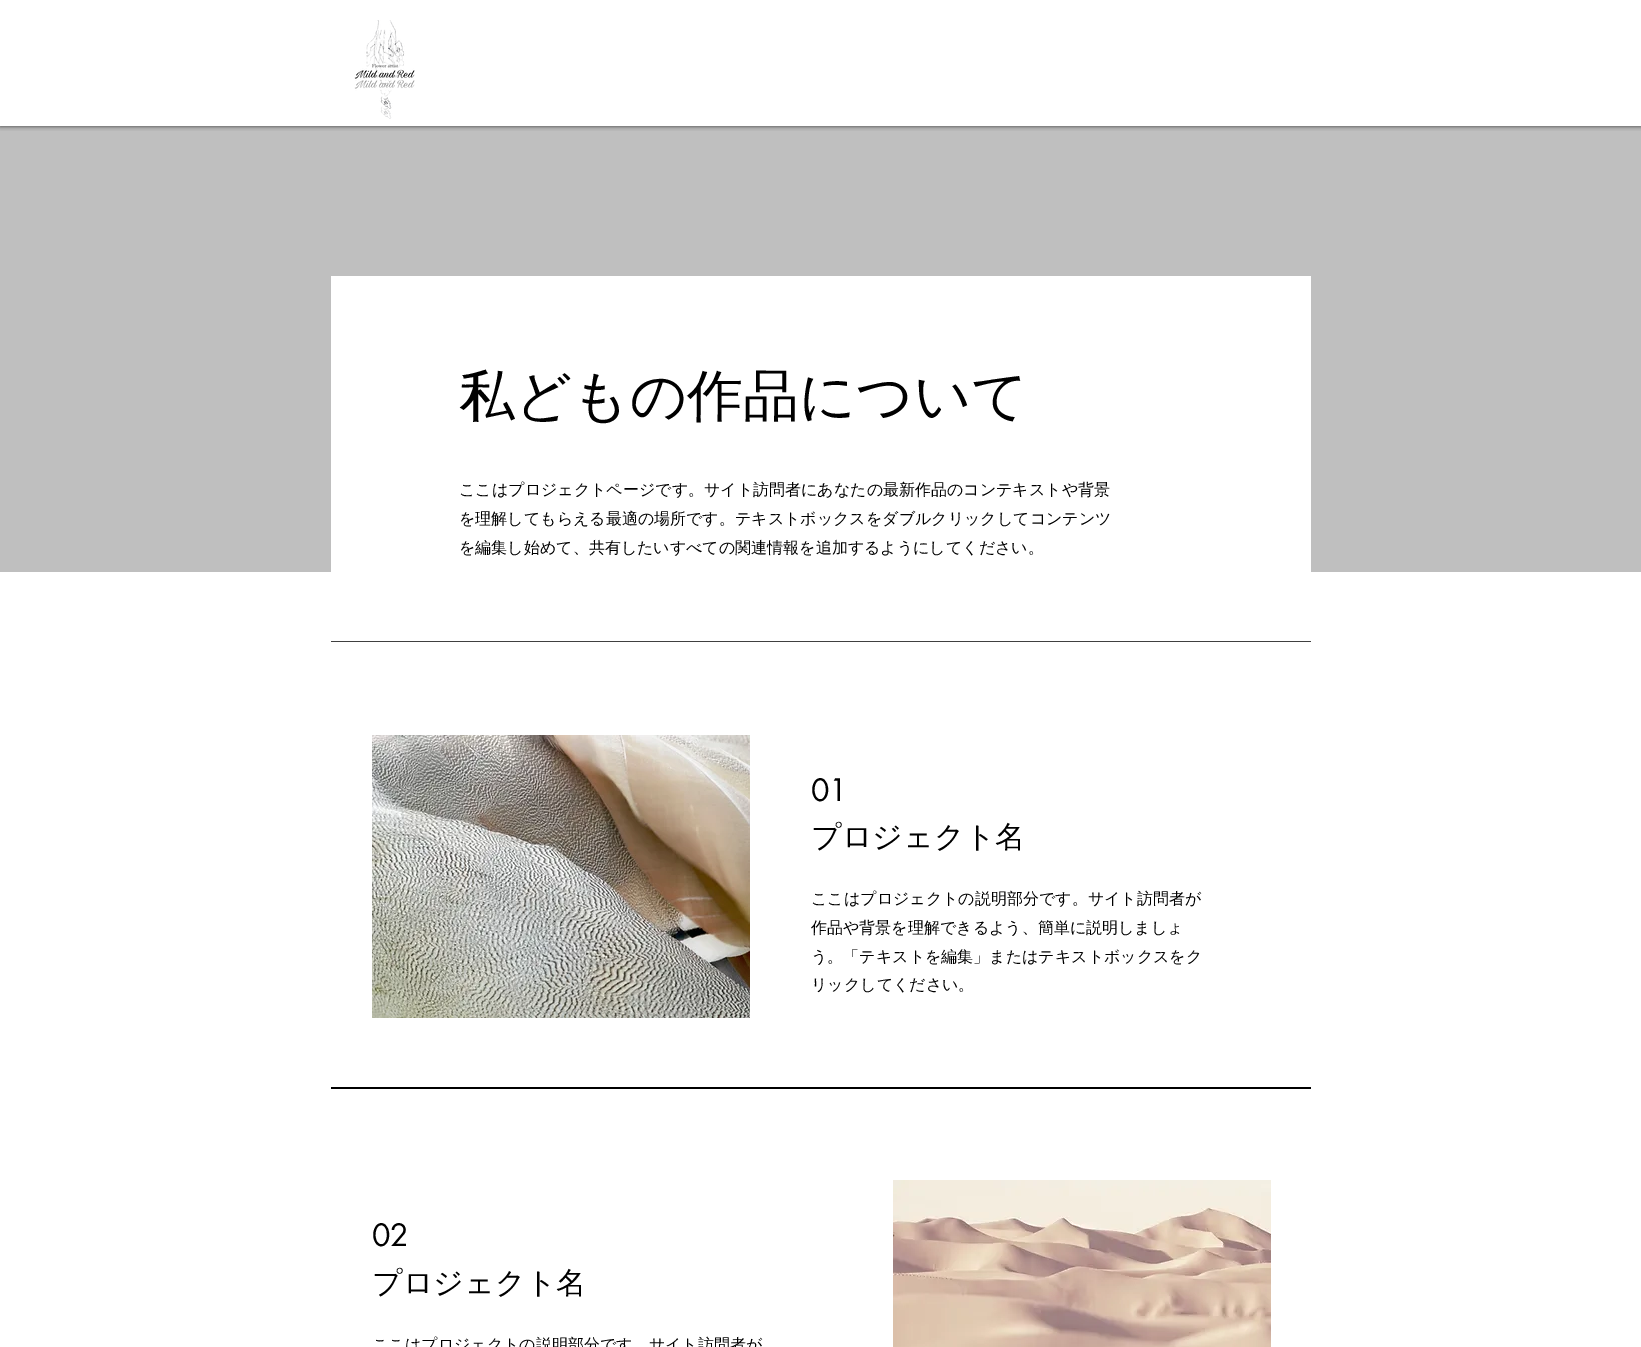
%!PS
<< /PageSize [1641 1347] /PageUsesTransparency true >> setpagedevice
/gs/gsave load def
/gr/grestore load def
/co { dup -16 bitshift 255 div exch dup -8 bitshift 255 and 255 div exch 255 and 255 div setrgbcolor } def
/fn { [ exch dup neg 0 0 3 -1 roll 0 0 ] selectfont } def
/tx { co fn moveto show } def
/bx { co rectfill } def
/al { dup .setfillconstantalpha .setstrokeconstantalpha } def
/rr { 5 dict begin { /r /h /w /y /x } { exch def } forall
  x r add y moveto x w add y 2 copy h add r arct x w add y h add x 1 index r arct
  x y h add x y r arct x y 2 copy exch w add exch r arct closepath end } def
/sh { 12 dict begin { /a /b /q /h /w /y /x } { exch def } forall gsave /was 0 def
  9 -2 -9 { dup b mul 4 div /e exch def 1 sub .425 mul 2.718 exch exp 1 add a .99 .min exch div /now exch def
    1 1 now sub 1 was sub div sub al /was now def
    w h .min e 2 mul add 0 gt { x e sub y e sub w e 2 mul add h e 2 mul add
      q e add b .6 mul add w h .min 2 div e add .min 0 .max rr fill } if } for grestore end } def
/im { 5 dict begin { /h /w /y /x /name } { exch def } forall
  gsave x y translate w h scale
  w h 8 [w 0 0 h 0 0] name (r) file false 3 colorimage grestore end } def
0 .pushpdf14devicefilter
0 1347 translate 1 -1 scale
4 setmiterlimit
0 0 1641 1347 16#FFFFFF bx
(media/2.raw) 354 30 61 89 im
0 126 1641 446 16#BFBFBF bx
gs
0 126 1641 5 rectclip
16#000000 co
0 0 1641 126 0 2.5 .7 sh
gr
(media/1.raw) 354 20 61 89 im
331 276 980 296 16#FFFFFF bx
331 641 980 1 16#404040 bx
(media/3.raw) 372 735 378 283 im
331 1087 980 2 16#000000 bx
(media/4.raw) 893 1180 378 167 im
(私どもの作品について) 459 415 /WenQuanYiZenHei-Medium 56 16#000000 tx
(ここはプロジェクトページです。サイト訪問者にあなたの最新作品のコンテキストや背景) 459 495 /WenQuanYiZenHei-Medium 16 16#000000 tx
(を理解してもらえる最適の場所です。テキストボックスをダブルクリックしてコンテンツ) 459 524 /WenQuanYiZenHei-Medium 16 16#000000 tx
(を編集し始めて、共有したいすべての関連情報を追加するようにしてください。) 459 553 /WenQuanYiZenHei-Medium 16 16#000000 tx
(01) 811 801 /futura-Regular 30 16#000000 tx
(プロジェクト名) 811 847 /WenQuanYiZenHei-Medium 30 16#000000 tx
(ここはプロジェクトの説明部分です。サイト訪問者が) 811 904 /WenQuanYiZenHei-Medium 16 16#000000 tx
(作品や背景を理解できるよう、簡単に説明しましょ) 811 933 /WenQuanYiZenHei-Medium 16 16#000000 tx
(う。「テキストを編集」またはテキストボックスをク) 811 962 /WenQuanYiZenHei-Medium 16 16#000000 tx
(リックしてください。) 811 990 /WenQuanYiZenHei-Medium 16 16#000000 tx
(02) 372 1246 /futura-Regular 30 16#000000 tx
(プロジェクト名) 372 1293 /WenQuanYiZenHei-Medium 30 16#000000 tx
(ここはプロジェクトの説明部分です。サイト訪問者が) 372 1350 /WenQuanYiZenHei-Medium 16 16#000000 tx
.poppdf14devicefilter showpage
